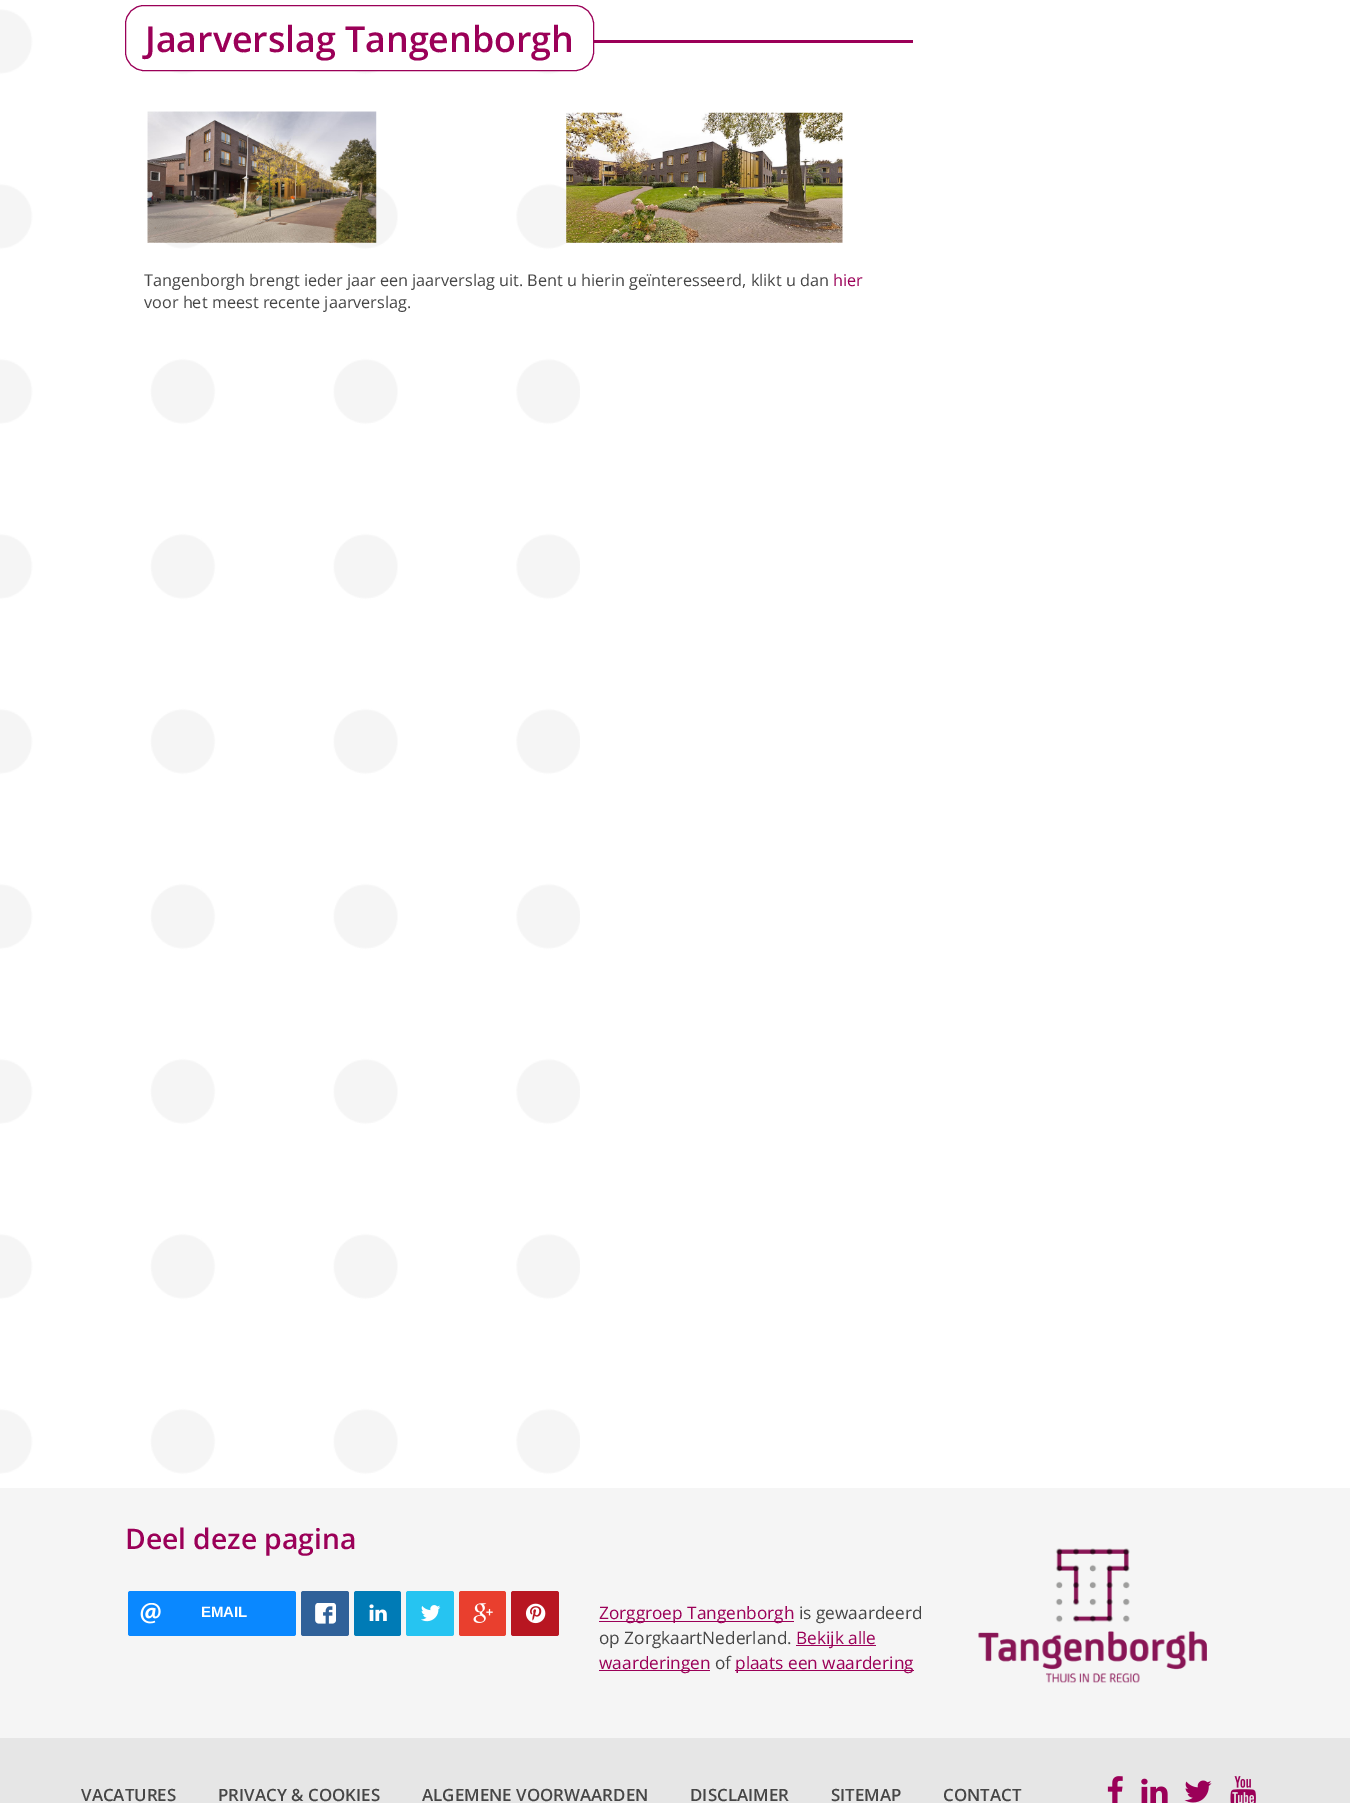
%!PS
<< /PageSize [1350 1803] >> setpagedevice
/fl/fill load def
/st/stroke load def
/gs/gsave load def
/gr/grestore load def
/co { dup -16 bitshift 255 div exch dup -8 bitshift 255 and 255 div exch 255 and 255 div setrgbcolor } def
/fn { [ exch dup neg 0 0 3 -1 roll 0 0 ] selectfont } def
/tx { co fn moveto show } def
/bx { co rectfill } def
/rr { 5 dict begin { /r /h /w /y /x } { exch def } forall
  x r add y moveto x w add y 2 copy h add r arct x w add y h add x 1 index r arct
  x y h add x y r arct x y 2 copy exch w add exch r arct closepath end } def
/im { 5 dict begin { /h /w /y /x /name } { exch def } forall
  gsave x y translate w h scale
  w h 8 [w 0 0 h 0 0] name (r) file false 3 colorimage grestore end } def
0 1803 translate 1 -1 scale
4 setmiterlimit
0 0 1350 1803 16#FFFFFF bx
(media/1.raw) 0 9 580 1466 im
594 40 319 3 16#9B0058 bx
16#FFFFFF co
125.5 5.5 468 65 18.5 rr gs fl gr
16#9B0058 co
st
(media/2.raw) 147 111 230 132 im
(media/3.raw) 566 112 277 131 im
0 1488 1350 250 16#F5F5F5 bx
16#0A88FF co
128 1591 168 45 2.5 rr fl
(media/4.raw) 140 1603 21 21 im
16#306199 co
301 1591 48 45 2.5 rr fl
(media/5.raw) 315 1603 21 21 im
16#007BB6 co
354 1591 47 45 2.5 rr fl
(media/6.raw) 369 1604 18 17 im
16#26C4F1 co
406 1591 48 45 2.5 rr fl
(media/7.raw) 421 1605 20 17 im
16#E93F2E co
459 1591 47 45 2.5 rr fl
(media/8.raw) 473 1603 20 20 im
16#B81621 co
511 1591 48 45 2.5 rr fl
(media/9.raw) 525 1603 21 21 im
599 1621 195 1 16#9B0058 bx
796 1645 80 1 16#9B0058 bx
599 1670 111 1 16#9B0058 bx
735 1670 179 1 16#9B0058 bx
(media/10.raw) 978 1548 229 135 im
0 1738 1350 65 16#E6E6E6 bx
(media/11.raw) 1107 1776 16 27 im
(media/12.raw) 1141 1778 27 25 im
(media/13.raw) 1184 1780 28 23 im
(media/14.raw) 1230 1776 26 27 im
(Jaarverslag Tangenborgh) 145 52 /OpenSans-SemiBold 35.75 16#9B0058 tx
(Tangenborgh brengt ieder jaar een jaarverslag uit. Bent u hierin geïnteresseerd, klikt u dan) 144 286 /OpenSans-Regular 16.25 16#464646 tx
(hier) 833 286 /OpenSans-Regular 16.25 16#9B0058 tx
(voor het meest recente jaarverslag.) 144 308 /OpenSans-Regular 16.25 16#464646 tx
(Deel deze pagina) 125 1549 /OpenSans-SemiBold 28.25 16#9B0058 tx
(EMAIL) 201 1617 /LiberationSans-Bold 15 16#FFFFFF tx
(Zorggroep Tangenborgh) 599 1619 /OpenSans-Regular 17.25 16#9B0058 tx
(is gewaardeerd) 799 1619 /OpenSans-Regular 17.25 16#464646 tx
(op ZorgkaartNederland.) 599 1644 /OpenSans-Regular 17.25 16#464646 tx
(Bekijk alle) 796 1644 /OpenSans-Regular 17.25 16#9B0058 tx
(waarderingen) 599 1669 /OpenSans-Regular 17.25 16#9B0058 tx
(of) 715 1669 /OpenSans-Regular 17.25 16#464646 tx
(plaats een waardering) 735 1669 /OpenSans-Regular 17.25 16#9B0058 tx
(VACATURES) 81 1801 /OpenSans-SemiBold 16.9 16#464646 tx
(PRIVACY & COOKIES) 218 1801 /OpenSans-SemiBold 16.9 16#464646 tx
(ALGEMENE VOORWAARDEN) 422 1801 /OpenSans-SemiBold 16.9 16#464646 tx
(DISCLAIMER) 690 1801 /OpenSans-SemiBold 16.9 16#464646 tx
(SITEMAP) 831 1801 /OpenSans-SemiBold 16.9 16#464646 tx
(CONTACT) 943 1801 /OpenSans-SemiBold 16.9 16#464646 tx
showpage
